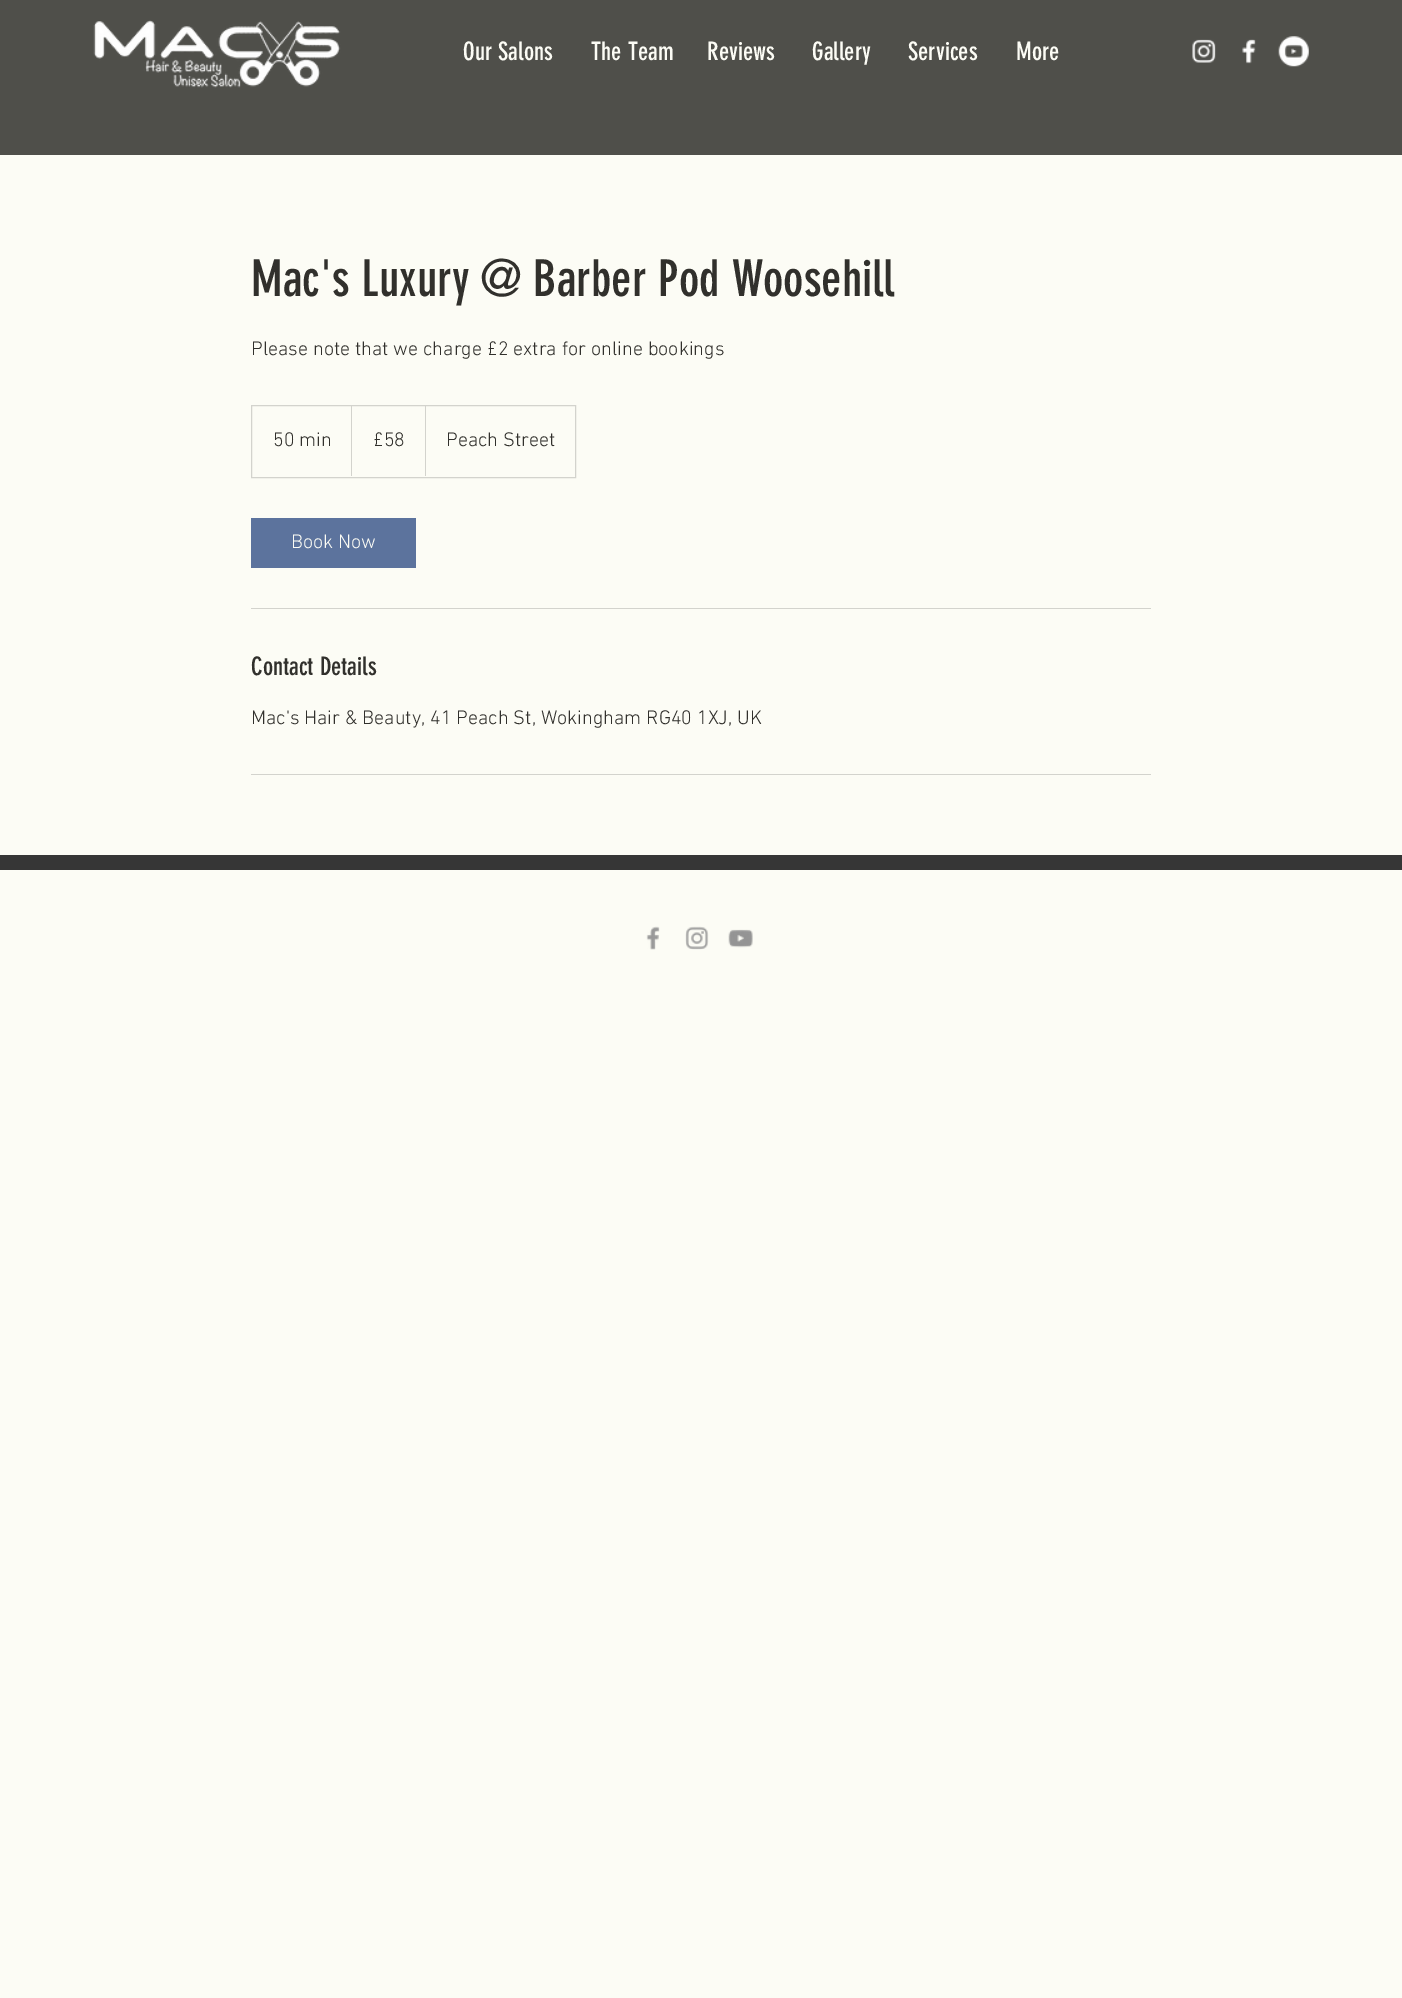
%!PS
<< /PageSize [1402 1998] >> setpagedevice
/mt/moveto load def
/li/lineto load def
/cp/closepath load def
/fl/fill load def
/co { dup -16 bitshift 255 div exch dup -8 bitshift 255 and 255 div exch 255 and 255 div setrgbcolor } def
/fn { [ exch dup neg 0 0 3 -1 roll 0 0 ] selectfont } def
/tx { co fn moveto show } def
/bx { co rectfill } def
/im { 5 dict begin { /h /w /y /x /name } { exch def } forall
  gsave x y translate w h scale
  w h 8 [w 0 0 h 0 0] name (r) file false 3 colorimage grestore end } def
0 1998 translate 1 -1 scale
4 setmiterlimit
0 0 1402 1998 16#FCFCF5 bx
0 0 1402 155 16#4F4F4A bx
(media/1.raw) 93 20 248 68 im
(media/2.raw) 1192 39 24 24 im
(media/3.raw) 1242 39 14 25 im
(media/4.raw) 1278 36 31 31 im
16#D3D3CD co
251.5 405.5 324 72 rectstroke
351 476 mt 351 405 li 352 406 li 352 476 li cp fl
425 476 mt 425 405 li 426 406 li 426 476 li cp fl
251 518 165 50 16#5C739D bx
251 608 900 1 16#D3D3CD bx
251 774 900 1 16#D3D3CD bx
0 855 1402 15 16#363636 bx
(media/5.raw) 646 926 14 24 im
(media/6.raw) 685 926 24 24 im
(media/7.raw) 728 929 25 19 im
(Our Salons) 463 60 /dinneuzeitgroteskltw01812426-Regular 25 16#FCFCF5 tx
(The Team) 591 60 /dinneuzeitgroteskltw01812426-Regular 25 16#FCFCF5 tx
(Reviews) 707 60 /dinneuzeitgroteskltw01812426-Regular 25 16#FCFCF5 tx
(Gallery) 812 60 /dinneuzeitgroteskltw01812426-Regular 25 16#FCFCF5 tx
(Services) 908 60 /dinneuzeitgroteskltw01812426-Regular 25 16#FCFCF5 tx
(More) 1016 60 /dinneuzeitgroteskltw01812426-Regular 25 16#FCFCF5 tx
(Mac's Luxury @ Barber Pod Woosehill) 251 296 /dinneuzeitgroteskltw01812426-Regular 50 16#31302C tx
(Please note that we charge £2 extra for online bookings) 251 355 /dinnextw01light-Light 20 16#31302C tx
(50 min) 273 446 /dinnextw01light-Light 20 16#31302C tx
(£58) 373 446 /dinnextw01light-Light 20 16#31302C tx
(Peach Street) 446 446 /dinnextw01light-Light 20 16#31302C tx
(Book Now) 291 548 /dinnextw01light-Light 20 16#FCFCF5 tx
(Contact Details) 251 675 /dinneuzeitgroteskltw01812426-Regular 25 16#31302C tx
(Mac's Hair & Beauty, 41 Peach St, Wokingham RG40 1XJ, UK) 251 724 /dinnextw01light-Light 20 16#31302C tx
showpage
